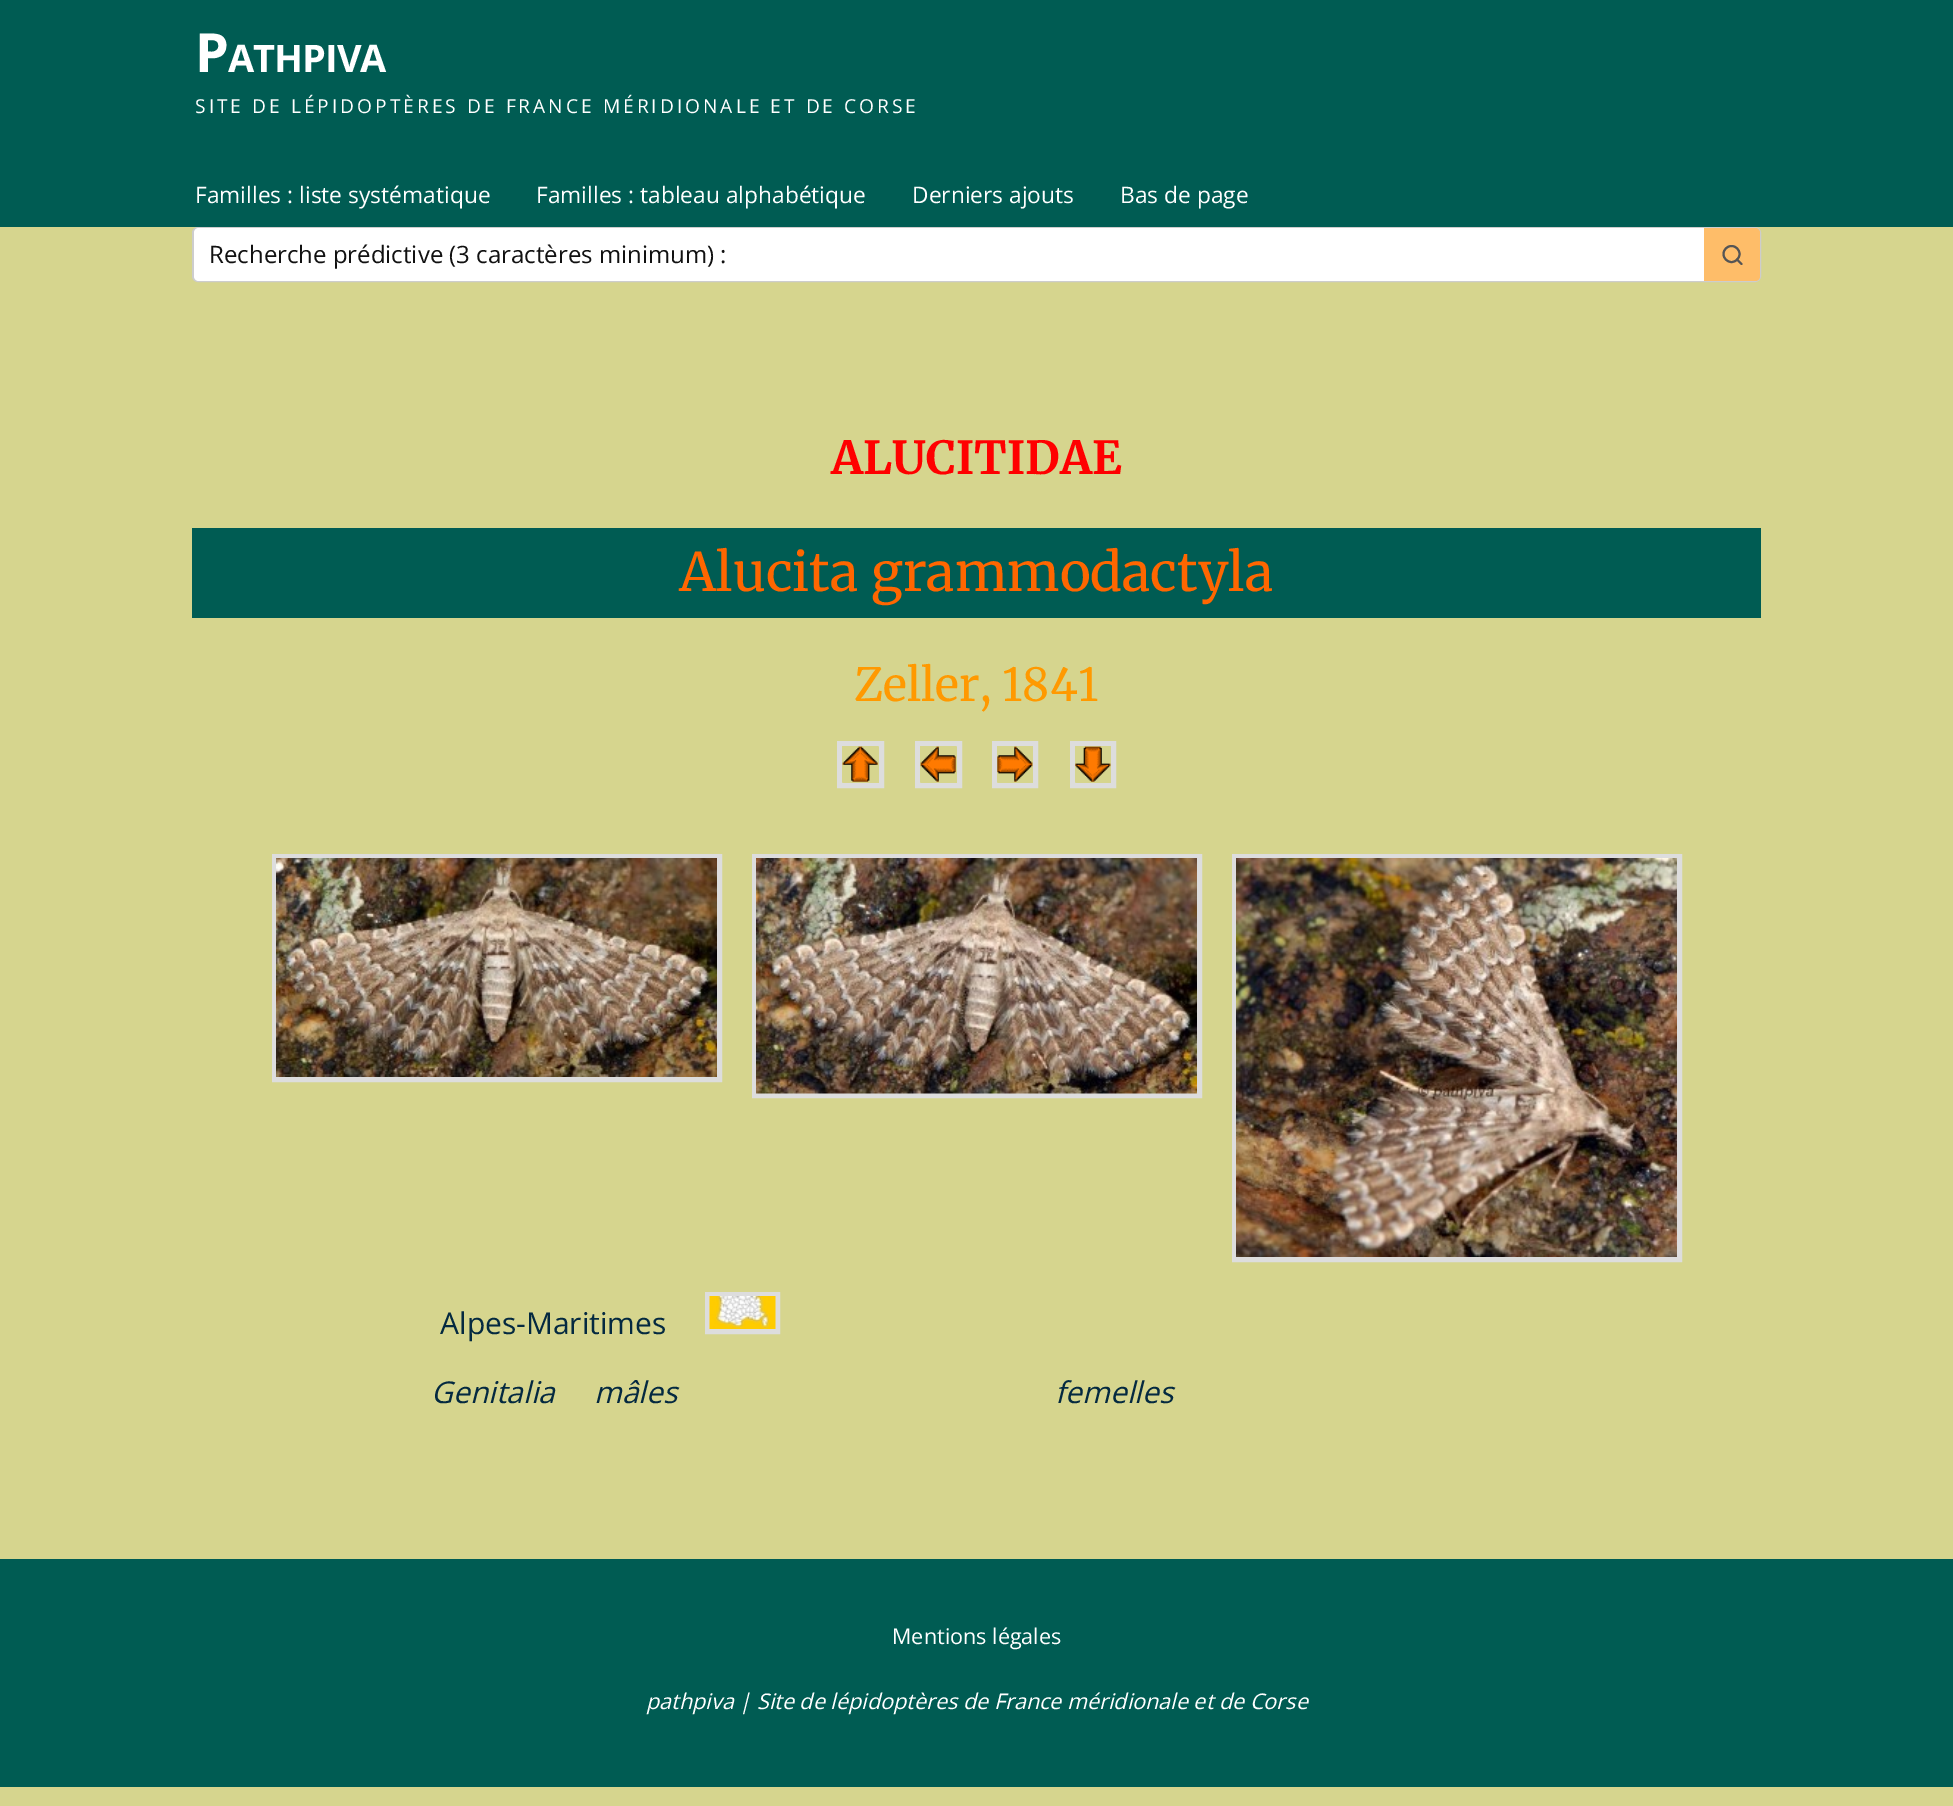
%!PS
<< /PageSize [1953 1806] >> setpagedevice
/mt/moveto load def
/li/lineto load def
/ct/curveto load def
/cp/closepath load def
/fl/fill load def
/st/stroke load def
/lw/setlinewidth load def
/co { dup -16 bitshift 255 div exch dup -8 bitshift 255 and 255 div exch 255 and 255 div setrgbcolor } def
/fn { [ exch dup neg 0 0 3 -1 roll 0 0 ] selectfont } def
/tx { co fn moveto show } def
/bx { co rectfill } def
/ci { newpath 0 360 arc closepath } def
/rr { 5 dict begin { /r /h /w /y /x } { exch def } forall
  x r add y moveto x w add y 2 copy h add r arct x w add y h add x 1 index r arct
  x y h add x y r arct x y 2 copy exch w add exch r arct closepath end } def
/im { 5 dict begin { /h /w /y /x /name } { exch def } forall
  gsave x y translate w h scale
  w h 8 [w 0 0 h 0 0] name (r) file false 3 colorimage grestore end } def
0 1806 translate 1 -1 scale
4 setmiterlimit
0 0 1953 1806 16#D6D58E bx
0 0 1953 227 16#005C53 bx
16#CDCDCD co
2 lw
193 228 1567 53 5 rr st
16#FFFFFF co
199 228 mt 1704 228 li 1704 281 li 199 281 li 196 281 194 279 194 276 ct 194 233 li 194 230 196 228 199 228 ct cp fl
16#FEBD69 co
1704 228 mt 1755 228 li 1758 228 1760 230 1760 233 ct 1760 276 li 1760 279 1758 281 1755 281 ct 1704 281 li cp fl
16#555555 co
1731.5 254 8 ci st
1 setlinecap
1 setlinejoin
1741.5 264 mt 1737 259.5 li st
192 528 1569 90 16#005C53 bx
16#DDDDDD co
5 lw
0 setlinecap
0 setlinejoin
839.5 743.5 42 42 rectstroke
917.5 743.5 42 42 rectstroke
994.5 743.5 41 42 rectstroke
1072.5 743.5 41 42 rectstroke
(media/1.raw) 842 746 36 36 im
(media/2.raw) 920 746 36 36 im
(media/3.raw) 997 746 36 36 im
(media/4.raw) 1075 746 36 36 im
274.5 856.5 445 223 rectstroke
(media/5.raw) 276 858 441 219 im
754.5 856.5 445 239 rectstroke
(media/6.raw) 756 858 441 236 im
1234.5 856.5 445 403 rectstroke
(media/7.raw) 1236 858 441 399 im
707.5 1294.5 70 37 rectstroke
(media/8.raw) 709 1296 67 33 im
0 1559 1953 228 16#005C53 bx
/OpenSans-Bold 54 fn
16#FFFFFF co
195 72 mt -1 0 (P) ashow
/OpenSans-Bold 38 fn
228 72 mt -1 0 (ATHPIVA) ashow
/OpenSans-Regular 19.2 fn
195 113 mt 3 0 (SITE DE LÉPIDOPTÈRES DE FRANCE MÉRIDIONALE ET DE CORSE) ashow
(Familles : liste systématique) 195 203 /OpenSans-Regular 22.75 16#FFFFFF tx
(Familles : tableau alphabétique) 536 203 /OpenSans-Regular 22.75 16#FFFFFF tx
(Derniers ajouts) 912 203 /OpenSans-Regular 22.75 16#FFFFFF tx
(Bas de page) 1120 203 /OpenSans-Regular 22.75 16#FFFFFF tx
(Recherche prédictive \(3 caractères minimum\) :) 209 263 /OpenSans-Regular 24 16#111111 tx
(ALUCITIDAE) 831 474 /Merriweather-Bold 45.5 16#FF0000 tx
(Alucita grammodactyla) 679 591 /Merriweather-Regular 52.75 16#FF6600 tx
(Zeller, 1841) 854 701 /Merriweather-Regular 45.5 16#FF9900 tx
(Alpes-Maritimes) 440 1334 /OpenSans-Regular 30 16#042940 tx
(Genitalia) 431 1403 /OpenSans-Italic 30 16#042940 tx
(mâles) 594 1403 /OpenSans-Italic 30 16#042940 tx
(femelles) 1055 1403 /OpenSans-Italic 30 16#042940 tx
(Mentions légales) 892 1644 /OpenSans-Regular 21.6 16#FFFFFF tx
(pathpiva | Site de lépidoptères de France méridionale et de Corse) 646 1709 /OpenSans-Italic 21.6 16#FFFFFF tx
showpage
